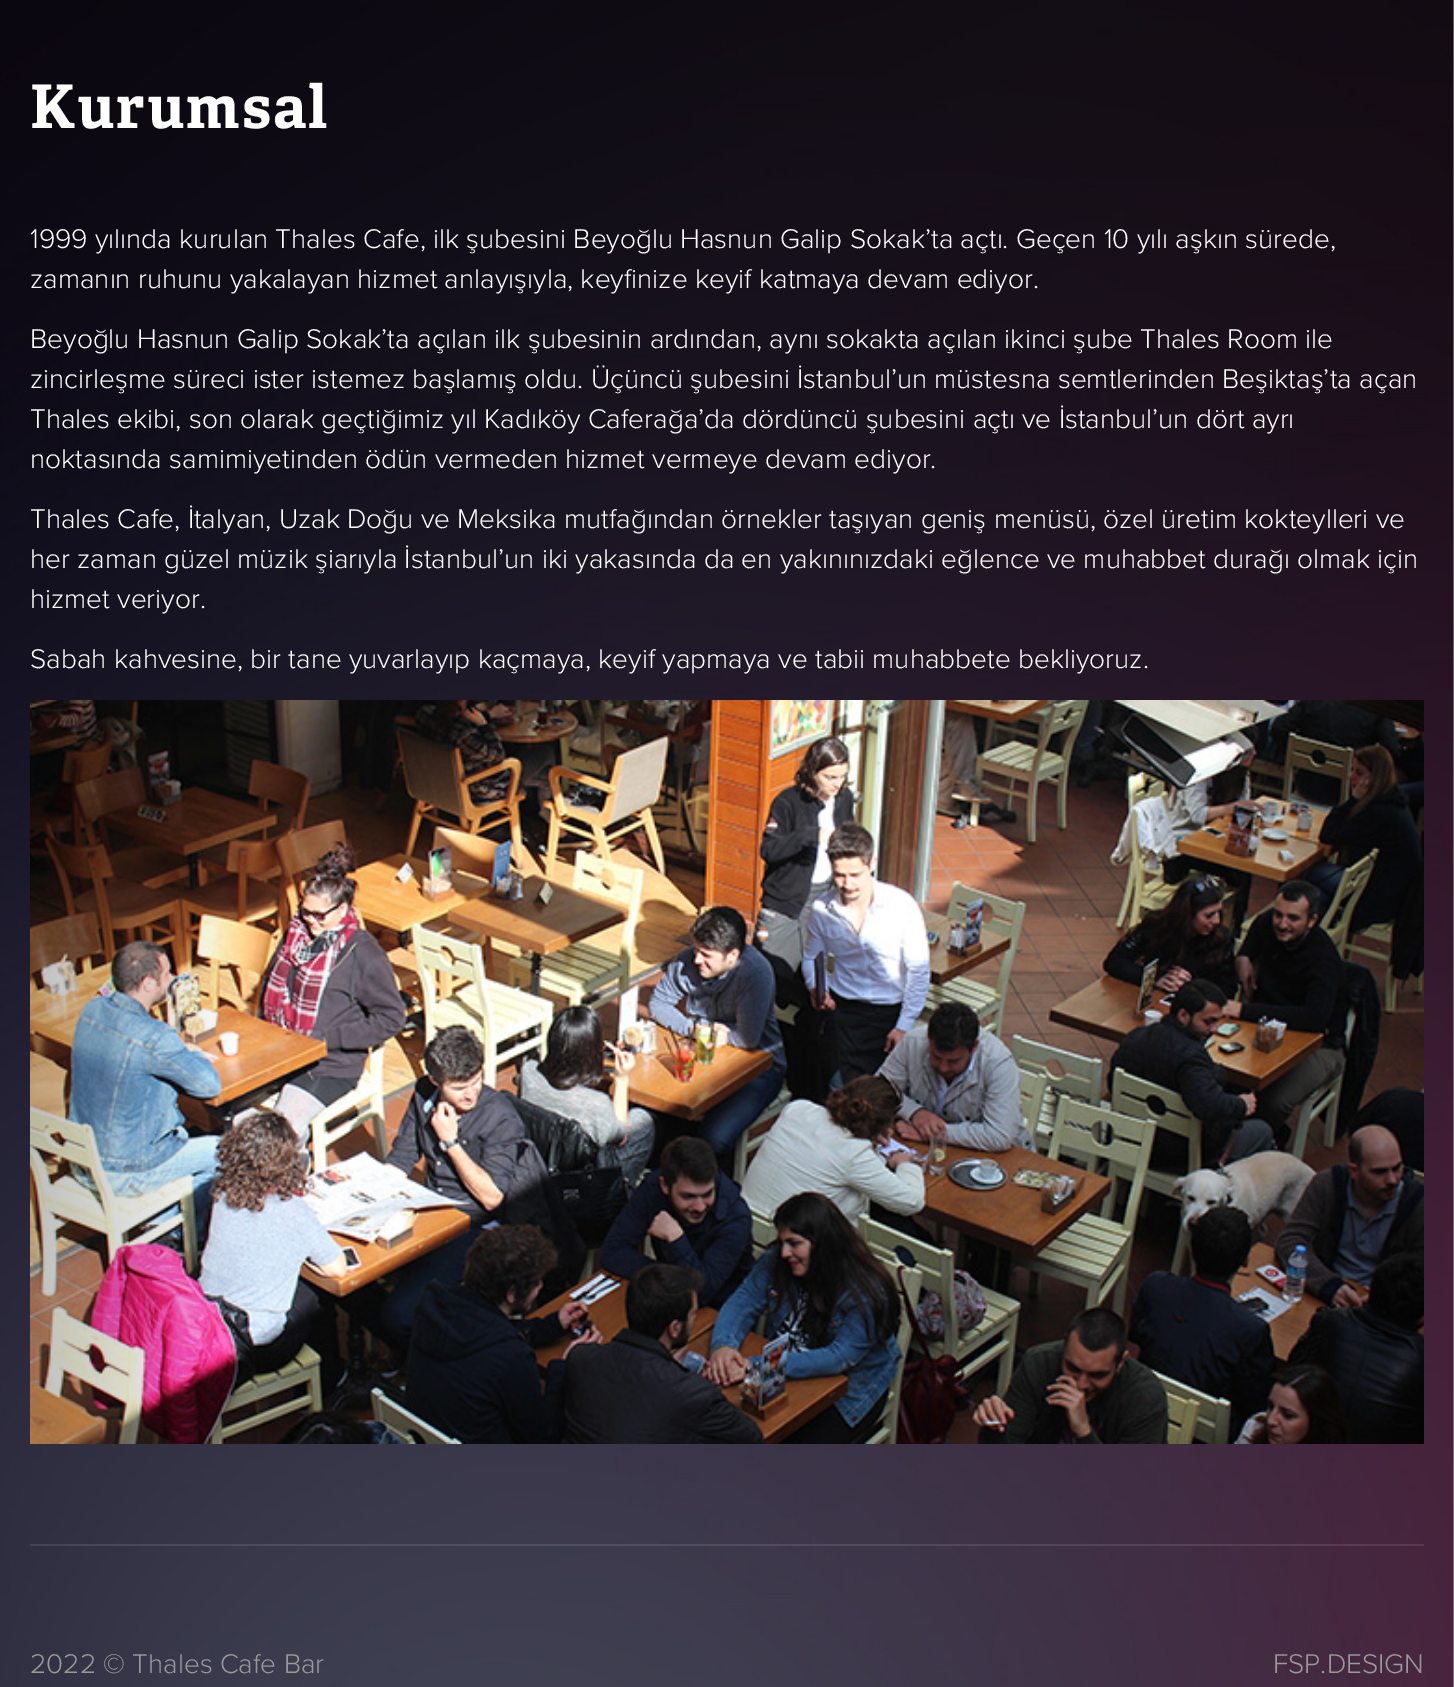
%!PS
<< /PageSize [1454 1687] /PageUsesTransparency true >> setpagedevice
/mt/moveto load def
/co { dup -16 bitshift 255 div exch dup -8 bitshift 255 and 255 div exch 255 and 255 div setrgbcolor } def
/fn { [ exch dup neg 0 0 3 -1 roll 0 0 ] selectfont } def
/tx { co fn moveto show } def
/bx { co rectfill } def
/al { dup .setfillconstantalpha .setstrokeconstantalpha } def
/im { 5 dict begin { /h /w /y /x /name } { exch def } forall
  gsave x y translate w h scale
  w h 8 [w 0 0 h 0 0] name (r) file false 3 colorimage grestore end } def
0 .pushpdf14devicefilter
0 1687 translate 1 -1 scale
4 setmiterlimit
0 0 1454 1687 16#FFFFFF bx
(media/1.raw) 0 0 1454 1687 im
(media/2.raw) 30 700 1394 744 im
0.1 al
30 1544 1394 2 16#FFFFFF bx
/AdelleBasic-Bold 60 fn
1 al
30 128 mt 2 0 (Kurumsal) ashow
(1999 yılında kurulan Thales Cafe, ilk şubesini Beyoğlu Hasnun Galip Sokak’ta açtı. Geçen 10 yılı aşkın sürede,) 30 248 /ProximaNova-Light 28 16#FFFFFF tx
(zamanın ruhunu yakalayan hizmet anlayışıyla, keyfinize keyif katmaya devam ediyor.) 30 288 /ProximaNova-Light 28 16#FFFFFF tx
(Beyoğlu Hasnun Galip Sokak’ta açılan ilk şubesinin ardından, aynı sokakta açılan ikinci şube Thales Room ile) 30 348 /ProximaNova-Light 28 16#FFFFFF tx
(zincirleşme süreci ister istemez başlamış oldu. Üçüncü şubesini İstanbul’un müstesna semtlerinden Beşiktaş’ta açan) 30 388 /ProximaNova-Light 28 16#FFFFFF tx
(Thales ekibi, son olarak geçtiğimiz yıl Kadıköy Caferağa’da dördüncü şubesini açtı ve İstanbul’un dört ayrı) 30 428 /ProximaNova-Light 28 16#FFFFFF tx
(noktasında samimiyetinden ödün vermeden hizmet vermeye devam ediyor.) 30 468 /ProximaNova-Light 28 16#FFFFFF tx
(Thales Cafe, İtalyan, Uzak Doğu ve Meksika mutfağından örnekler taşıyan geniş menüsü, özel üretim kokteylleri ve) 30 528 /ProximaNova-Light 28 16#FFFFFF tx
(her zaman güzel müzik şiarıyla İstanbul’un iki yakasında da en yakınınızdaki eğlence ve muhabbet durağı olmak için) 30 568 /ProximaNova-Light 28 16#FFFFFF tx
(hizmet veriyor.) 30 608 /ProximaNova-Light 28 16#FFFFFF tx
(Sabah kahvesine, bir tane yuvarlayıp kaçmaya, keyif yapmaya ve tabii muhabbete bekliyoruz.) 30 668 /ProximaNova-Light 28 16#FFFFFF tx
(2022 © Thales Cafe Bar) 30 1673 /ProximaNova-Light 28 16#999999 tx
(FSP.DESIGN) 1273 1673 /ProximaNova-Light 28 16#999999 tx
.poppdf14devicefilter showpage
